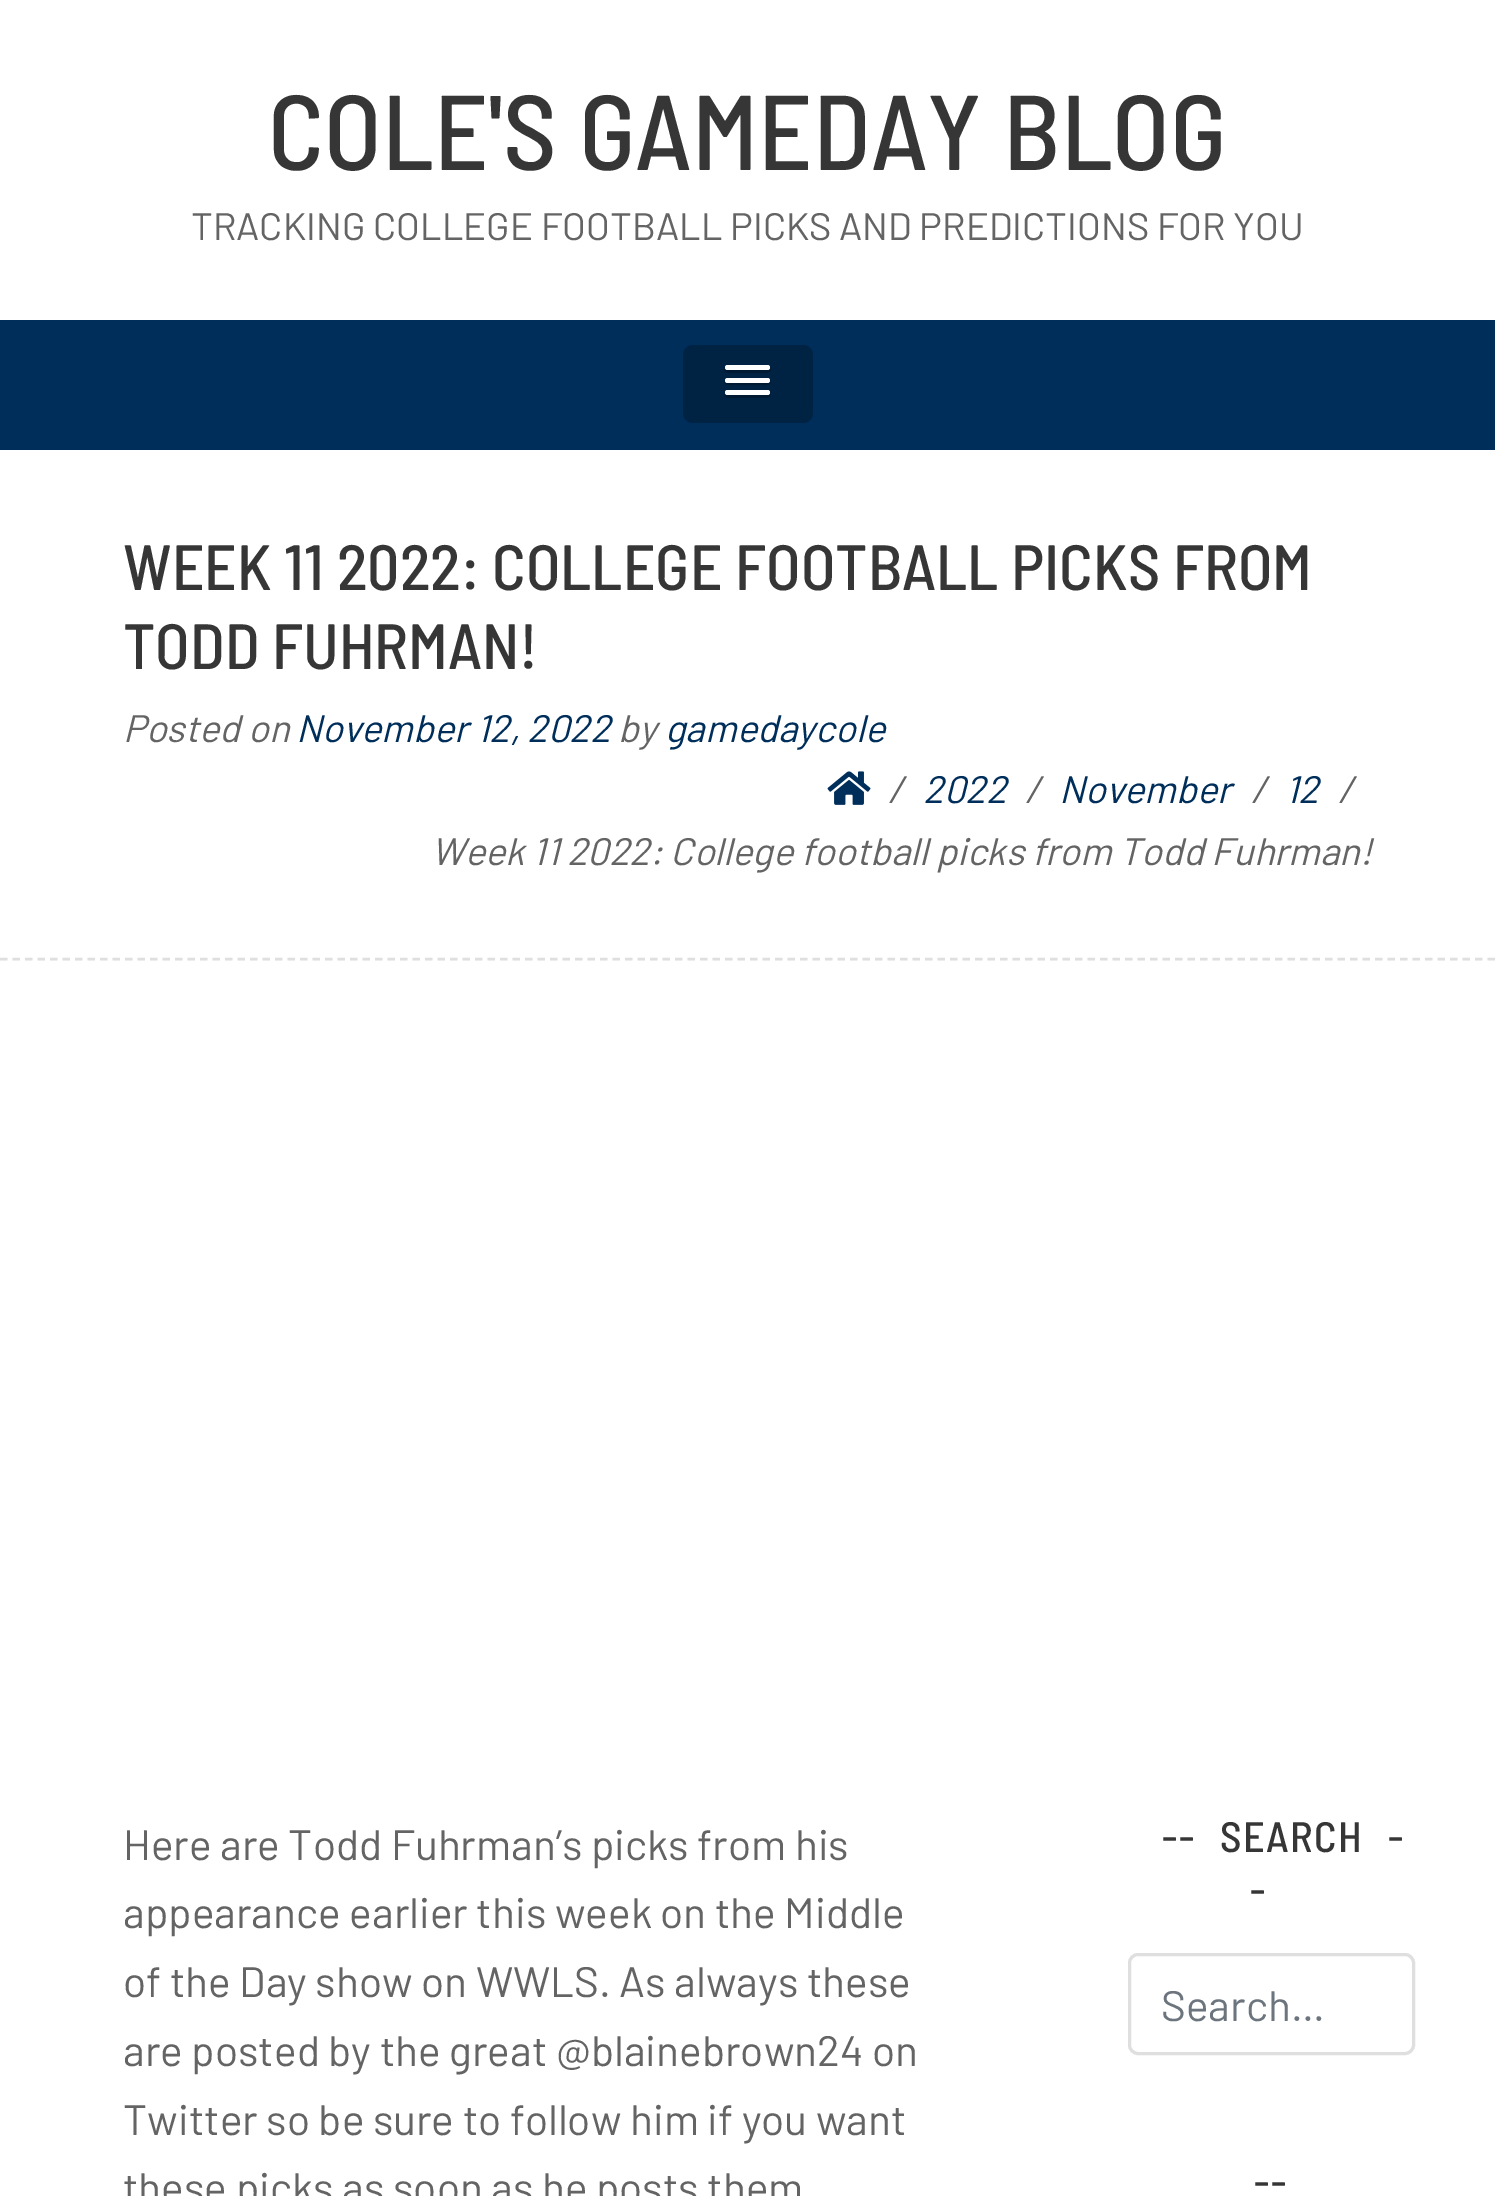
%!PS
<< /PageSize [1495 2196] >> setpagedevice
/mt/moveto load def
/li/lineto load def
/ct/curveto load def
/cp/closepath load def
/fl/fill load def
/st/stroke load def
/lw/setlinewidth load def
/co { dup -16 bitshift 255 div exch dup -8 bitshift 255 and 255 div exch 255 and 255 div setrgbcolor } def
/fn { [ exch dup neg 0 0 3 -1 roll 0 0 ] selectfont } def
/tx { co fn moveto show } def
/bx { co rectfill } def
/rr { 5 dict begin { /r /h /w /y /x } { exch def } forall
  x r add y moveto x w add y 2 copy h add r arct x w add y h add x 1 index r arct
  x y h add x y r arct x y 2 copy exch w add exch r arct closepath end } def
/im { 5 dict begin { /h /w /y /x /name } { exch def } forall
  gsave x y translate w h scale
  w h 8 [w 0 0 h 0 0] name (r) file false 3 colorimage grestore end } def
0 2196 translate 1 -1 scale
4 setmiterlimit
0 0 1495 2196 16#FFFFFF bx
0 320 1495 130 16#002E5B bx
16#002344 co
683 345 130 78 10 rr fl
16#001A33 co
725 369 mt 722 373 730 373 734 373 ct 761 373 li 765 373 773 373 770 369 ct 768 370 li 727 370 li cp fl
16#FFFFFF co
725 365 45 5 2.5 rr fl
16#001A33 co
725 381 mt 722 386 734 385 734 385 ct 761 385 li 761 385 773 386 770 381 ct 769 382 768 382 768 382 ct 728 382 li 727 382 726 382 725 381 ct cp fl
16#FFFFFF co
725 378 45 5 2.5 rr fl
16#001A33 co
725 394 mt 722 398 730 398 734 398 ct 761 398 li 765 398 773 398 770 394 ct 768 395 li 727 395 li cp fl
16#FFFFFF co
725 390 45 5 2.5 rr fl
16#DFDFDF co
2.5 lw
[7.5 5] 0 setdash
0 959 mt 1495 959 li st
(media/1.raw) 827 771 44 34 im
3 lw
[] 0 setdash
1129.5 1954.5 284 99 8.5 rr st
(COLE'S GAMEDAY BLOG) 268 170 /BarlowSemiCondensed-Medium 106.25 16#363636 tx
(TRACKING COLLEGE FOOTBALL PICKS AND PREDICTIONS FOR YOU) 191 240 /Barlow-Regular 38.25 16#646464 tx
(WEEK 11 2022: COLLEGE FOOTBALL PICKS FROM) 123 590 /BarlowSemiCondensed-Medium 63.75 16#363636 tx
(TODD FUHRMAN!) 123 669 /BarlowSemiCondensed-Medium 63.75 16#363636 tx
(Posted on) 123 742 /Barlow-Italic 38.25 16#646464 tx
(November 12, 2022) 296 742 /Barlow-Italic 38.25 16#002E5B tx
(by) 618 742 /Barlow-Italic 38.25 16#646464 tx
(gamedaycole) 665 742 /Barlow-Italic 38.25 16#002E5B tx
(/) 888 803 /Barlow-Italic 38.25 16#646464 tx
(2022) 923 803 /Barlow-Italic 38.25 16#002E5B tx
(/) 1025 803 /Barlow-Italic 38.25 16#646464 tx
(November) 1059 803 /Barlow-Italic 38.25 16#002E5B tx
(/) 1251 803 /Barlow-Italic 38.25 16#646464 tx
(12) 1285 803 /Barlow-Italic 38.25 16#002E5B tx
(/) 1338 803 /Barlow-Italic 38.25 16#646464 tx
(Week 11 2022: College football picks from Todd Fuhrman!) 431 865 /Barlow-Italic 38.25 16#646464 tx
(Here are Todd Fuhrman’s picks from his) 123 1860 /Barlow-Regular 42.5 16#646464 tx
(appearance earlier this week on the Middle) 123 1928 /Barlow-Regular 42.5 16#646464 tx
(of the Day show on WWLS. As always these) 123 1997 /Barlow-Regular 42.5 16#646464 tx
(are posted by the great @blainebrown24 on) 123 2066 /Barlow-Regular 42.5 16#646464 tx
(Twitter so be sure to follow him if you want) 123 2135 /Barlow-Regular 42.5 16#646464 tx
(these picks as soon as he posts them) 123 2203 /Barlow-Regular 42.5 16#646464 tx
/BarlowSemiCondensed-Medium 42.5 fn
16#363636 co
1162 1852 mt 1.25 0 (--) ashow
1220 1852 mt 1.25 0 (SEARCH) ashow
1388 1852 mt 1.25 0 (-) ashow
1250 1905 mt 1.25 0 (-) ashow
(Search…) 1161 2021 /Barlow-Regular 42.5 16#6C757D tx
/BarlowSemiCondensed-Medium 42.5 fn
16#363636 co
1254 2197 mt 1.25 0 (--) ashow
showpage
